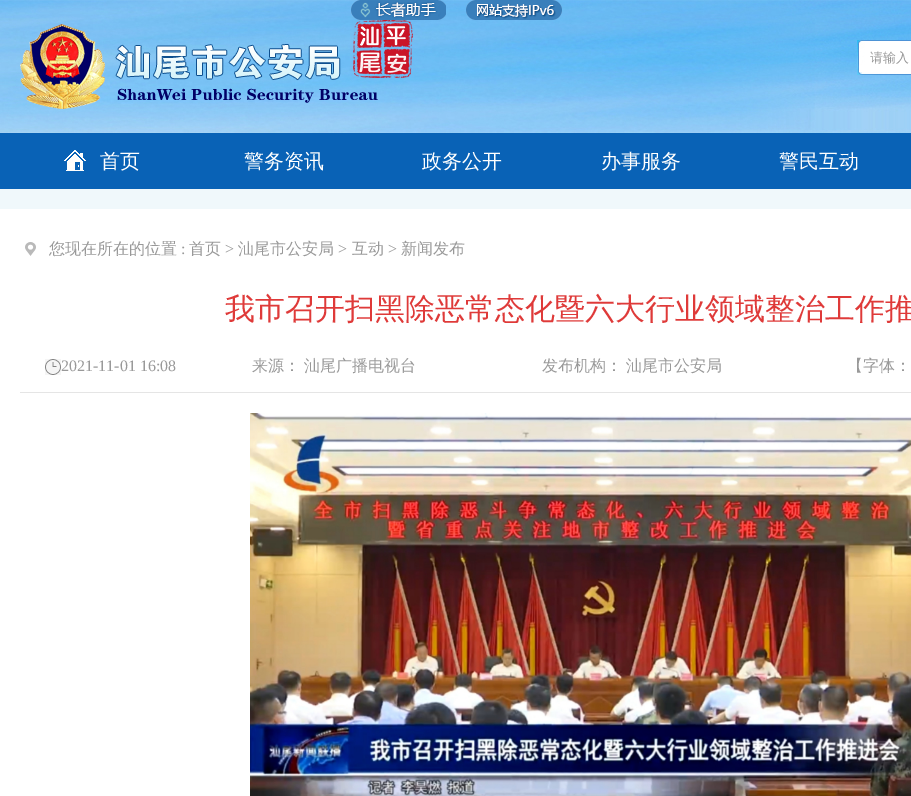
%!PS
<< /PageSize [911 796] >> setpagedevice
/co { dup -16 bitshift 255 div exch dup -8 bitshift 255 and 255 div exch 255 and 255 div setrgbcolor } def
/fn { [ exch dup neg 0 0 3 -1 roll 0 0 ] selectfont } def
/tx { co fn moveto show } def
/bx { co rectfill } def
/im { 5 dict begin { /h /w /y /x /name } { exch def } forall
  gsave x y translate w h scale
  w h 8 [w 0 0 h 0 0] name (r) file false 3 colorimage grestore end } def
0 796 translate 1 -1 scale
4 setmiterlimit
0 0 911 796 16#F0F8FB bx
(media/3.raw) 0 0 911 133 im
(media/1.raw) 351 0 95 20 im
(media/2.raw) 466 0 96 20 im
(media/4.raw) 20 20 393 89 im
(media/5.raw) 857 40 54 35 im
0 133 911 56 16#0962B6 bx
(media/6.raw) 64 150 22 21 im
0 209 911 587 16#FFFFFF bx
(media/7.raw) 25 242 11 14 im
20 392 891 1 16#E5E5E5 bx
(media/8.raw) 45 359 16 16 im
(media/9.raw) 250 413 661 383 im
(请输入) 870 62 /WenQuanYiZenHei-Medium 13 16#999999 tx
(首页) 100 168 /WenQuanYiZenHei-Medium 20 16#FFFFFF tx
(警务资讯) 244 168 /WenQuanYiZenHei-Medium 20 16#FFFFFF tx
(政务公开) 422 168 /WenQuanYiZenHei-Medium 20 16#FFFFFF tx
(办事服务) 601 168 /WenQuanYiZenHei-Medium 20 16#FFFFFF tx
(警民互动) 779 168 /WenQuanYiZenHei-Medium 20 16#FFFFFF tx
(您现在所在的位置) 49 254 /WenQuanYiZenHei-Medium 16 16#999999 tx
(:) 181 254 /LiberationSerif-Regular 16 16#999999 tx
(首页) 189 254 /WenQuanYiZenHei-Medium 16 16#999999 tx
(>) 225 254 /LiberationSerif-Regular 16 16#999999 tx
(汕尾市公安局) 238 254 /WenQuanYiZenHei-Medium 16 16#999999 tx
(>) 338 254 /LiberationSerif-Regular 16 16#999999 tx
(互动) 352 254 /WenQuanYiZenHei-Medium 16 16#999999 tx
(>) 388 254 /LiberationSerif-Regular 16 16#999999 tx
(新闻发布) 401 254 /WenQuanYiZenHei-Medium 16 16#999999 tx
(我市召开扫黑除恶常态化暨六大行业领域整治工作推) 225 319 /WenQuanYiZenHei-Medium 30 16#DF3A39 tx
(2021-11-01 16:08) 61 371 /LiberationSerif-Regular 16 16#999999 tx
(来源：) 252 371 /WenQuanYiZenHei-Medium 16 16#999999 tx
(汕尾广播电视台) 304 371 /WenQuanYiZenHei-Medium 16 16#999999 tx
(发布机构：) 542 371 /WenQuanYiZenHei-Medium 16 16#999999 tx
(汕尾市公安局) 626 371 /WenQuanYiZenHei-Medium 16 16#999999 tx
(【字体：) 847 371 /WenQuanYiZenHei-Medium 16 16#999999 tx
showpage
